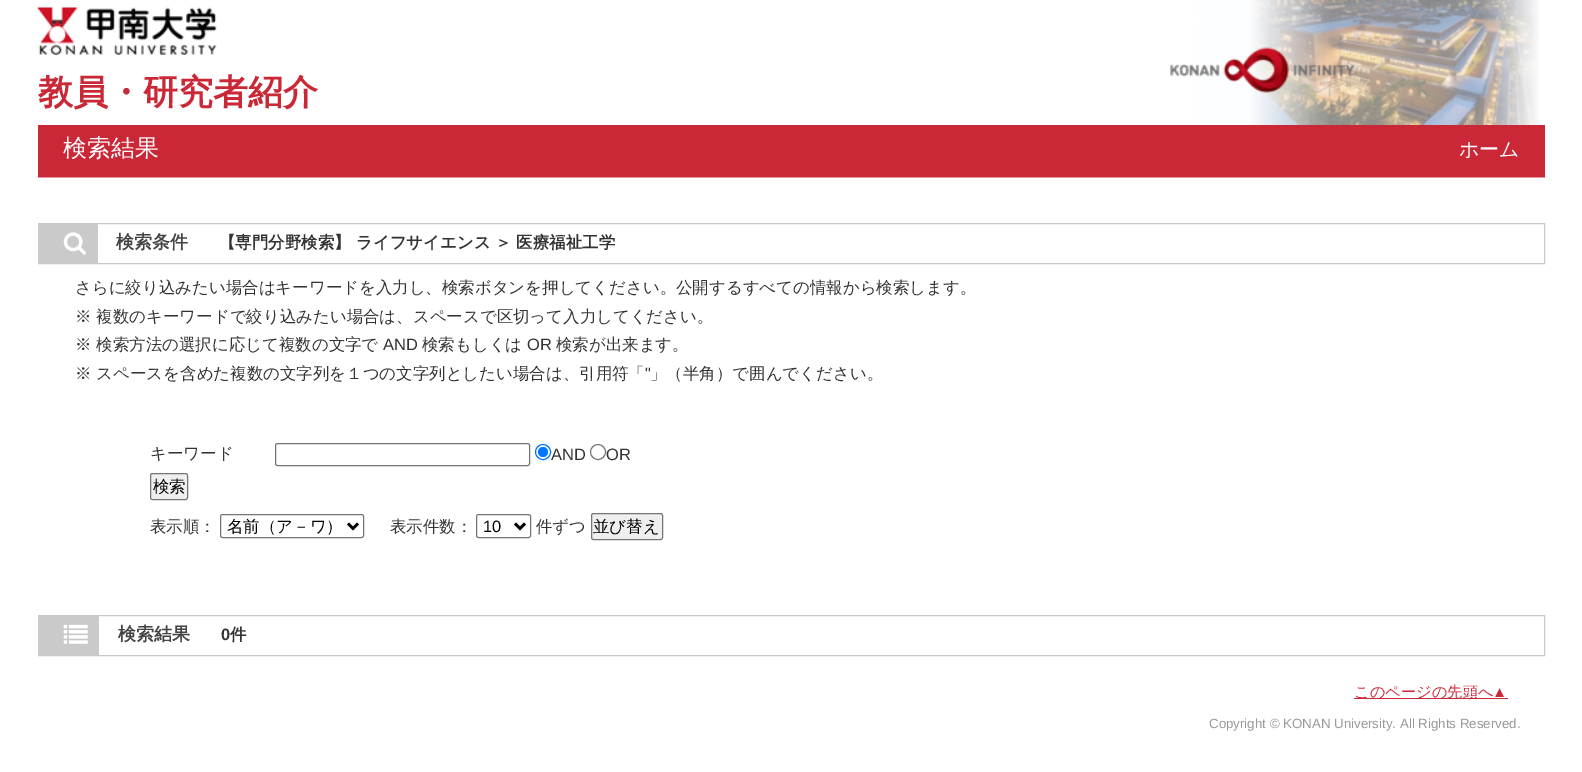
%!PS
<< /PageSize [1582 772] >> setpagedevice
/mt/moveto load def
/li/lineto load def
/fl/fill load def
/st/stroke load def
/gs/gsave load def
/gr/grestore load def
/lw/setlinewidth load def
/co { dup -16 bitshift 255 div exch dup -8 bitshift 255 and 255 div exch 255 and 255 div setrgbcolor } def
/fn { [ exch dup neg 0 0 3 -1 roll 0 0 ] selectfont } def
/tx { co fn moveto show } def
/bx { co rectfill } def
/ci { newpath 0 360 arc closepath } def
/rr { 5 dict begin { /r /h /w /y /x } { exch def } forall
  x r add y moveto x w add y 2 copy h add r arct x w add y h add x 1 index r arct
  x y h add x y r arct x y 2 copy exch w add exch r arct closepath end } def
/im { 5 dict begin { /h /w /y /x /name } { exch def } forall
  gsave x y translate w h scale
  w h 8 [w 0 0 h 0 0] name (r) file false 3 colorimage grestore end } def
0 772 translate 1 -1 scale
4 setmiterlimit
0 0 1582 772 16#FFFFFF bx
(media/1.raw) 1170 0 369 125 im
(media/2.raw) 37 7 180 48 im
38 125 1507 52 16#CB2837 bx
38 177 1507 1 16#E5949B bx
16#CACACA co
38.5 223.5 1506 40 rectstroke
39 224 59 39 16#CACACA bx
(media/3.raw) 63 232 23 23 im
16#767676 co
275.5 443.5 254 22 2 rr st
16#0075FF co
543 452 7.5 ci st
543 452 5 ci fl
16#767676 co
598 452 7.5 ci st
16#EFEFEF co
150.5 473.5 37 26 2 rr gs fl gr
16#767676 co
st
220.5 514.5 143 23 2 rr st
16#000000 co
2.5 lw
348 523.5 mt 353 528.5 li 358 523.5 li st
16#767676 co
1 lw
476.5 514.5 54 23 2 rr st
16#000000 co
2.5 lw
515 523.5 mt 520 528.5 li 525 523.5 li st
16#EFEFEF co
591.5 513.5 71 26 2 rr gs fl gr
16#767676 co
1 lw
st
16#CACACA co
38.5 615.5 1506 40 rectstroke
39 616 60 39 16#CACACA bx
(media/4.raw) 63 624 25 20 im
1354 698 154 1 16#CB2837 bx
(教員・研究者紹介) 38 104 /WenQuanYiZenHei-Bold 35 16#CB2837 tx
(検索結果) 63 156 /WenQuanYiZenHei-Medium 24 16#FFFFFF tx
(ホーム) 1459 156 /WenQuanYiZenHei-Medium 20 16#FFFFFF tx
(検索条件) 116 248 /WenQuanYiZenHei-Bold 18 16#444444 tx
(【専門分野検索】) 219 248 /WenQuanYiZenHei-Bold 16.45 16#333333 tx
(ライフサイエンス) 356 248 /WenQuanYiZenHei-Bold 16.45 16#333333 tx
(＞ 医療福祉工学) 495 248 /WenQuanYiZenHei-Bold 16.45 16#333333 tx
(さらに絞り込みたい場合はキーワードを入力し、検索ボタンを押してください。公開するすべての情報から検索します。) 75 293 /WenQuanYiZenHei-Medium 16.45 16#333333 tx
(※ 複数のキーワードで絞り込みたい場合は、スペースで区切って入力してください。) 75 322 /WenQuanYiZenHei-Medium 16.45 16#333333 tx
(※ 検索方法の選択に応じて複数の文字で) 75 350 /WenQuanYiZenHei-Medium 16.45 16#333333 tx
(AND) 383 350 /LiberationSans-Regular 16.45 16#333333 tx
(検索もしくは) 422 350 /WenQuanYiZenHei-Medium 16.45 16#333333 tx
(OR) 527 350 /LiberationSans-Regular 16.45 16#333333 tx
(検索が出来ます。) 556 350 /WenQuanYiZenHei-Medium 16.45 16#333333 tx
(※ スペースを含めた複数の文字列を１つの文字列としたい場合は、引用符「) 75 379 /WenQuanYiZenHei-Medium 16.45 16#333333 tx
(") 645 379 /LiberationSans-Regular 16.45 16#333333 tx
(」（半角）で囲んでください。) 650 379 /WenQuanYiZenHei-Medium 16.45 16#333333 tx
(キーワード) 150 459 /WenQuanYiZenHei-Medium 16.45 16#333333 tx
(AND) 551 460 /LiberationSans-Regular 16.45 16#333333 tx
(OR) 606 460 /LiberationSans-Regular 16.45 16#333333 tx
(検索) 153 492 /WenQuanYiZenHei-Medium 16.45 16#000000 tx
(表示順：) 150 532 /WenQuanYiZenHei-Medium 16.45 16#333333 tx
(名前（ア－ワ）) 227 532 /WenQuanYiZenHei-Medium 16.45 16#000000 tx
(表示件数：) 390 532 /WenQuanYiZenHei-Medium 16.45 16#333333 tx
(10) 483 532 /LiberationSans-Regular 16.45 16#000000 tx
(件ずつ) 536 532 /WenQuanYiZenHei-Medium 16.45 16#333333 tx
(並び替え) 593 532 /WenQuanYiZenHei-Medium 16.45 16#000000 tx
(検索結果) 118 640 /WenQuanYiZenHei-Bold 18 16#444444 tx
(0) 221 640 /LiberationSans-Bold 16.45 16#333333 tx
(件) 230 640 /WenQuanYiZenHei-Bold 16.45 16#333333 tx
(このページの先頭へ) 1354 697 /WenQuanYiZenHei-Medium 15.25 16#CB2837 tx
(▲) 1492 697 /LiberationSans-Regular 15.25 16#CB2837 tx
(Copyright © KONAN University. All Rights Reserved.) 1209 728 /LiberationSans-Regular 13.3 16#999999 tx
showpage
